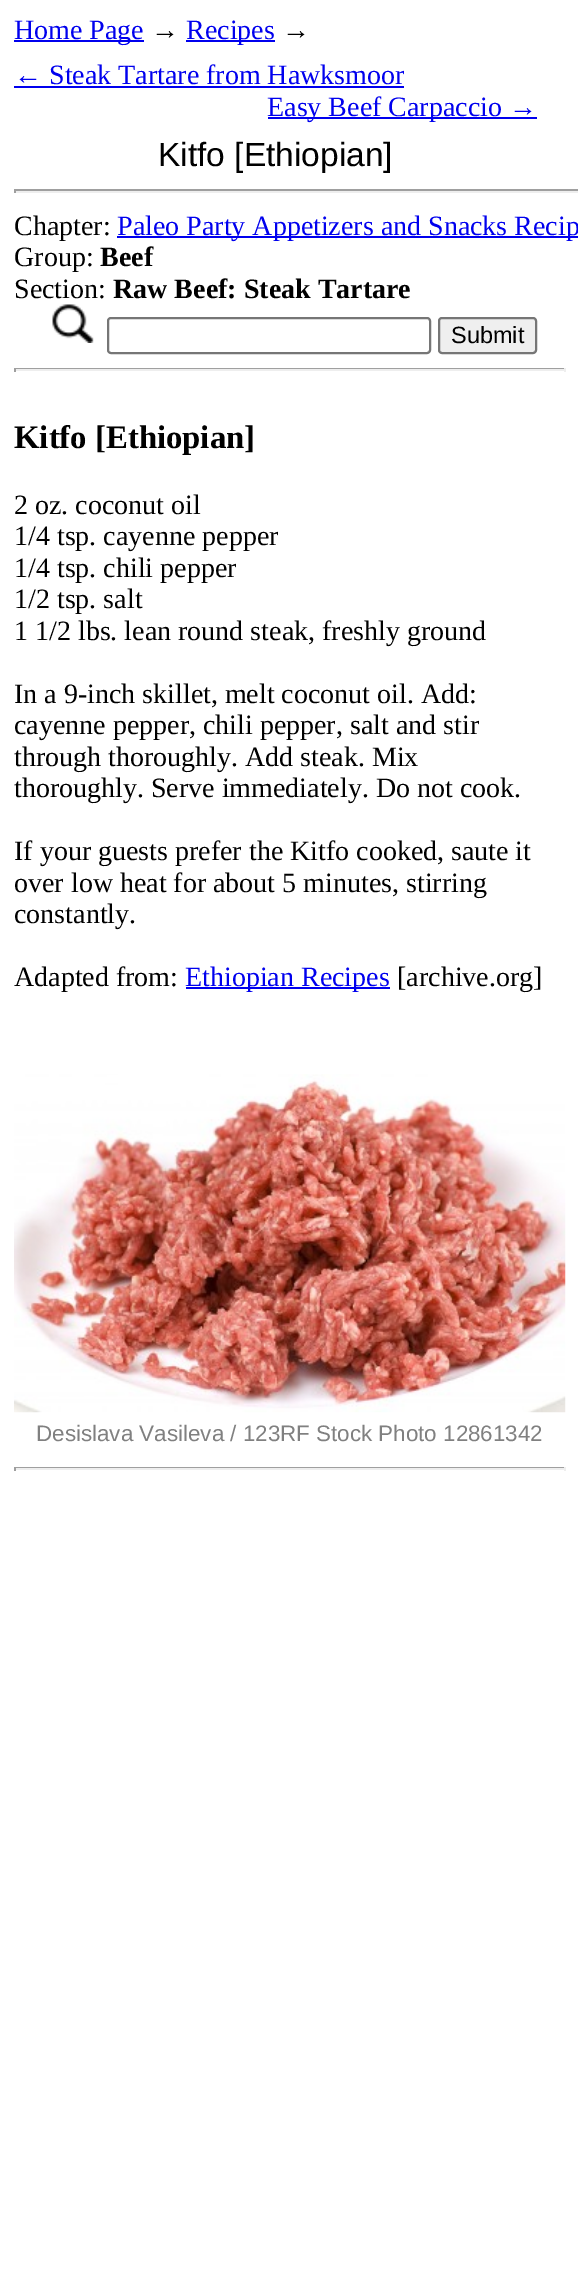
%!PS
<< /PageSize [578 2277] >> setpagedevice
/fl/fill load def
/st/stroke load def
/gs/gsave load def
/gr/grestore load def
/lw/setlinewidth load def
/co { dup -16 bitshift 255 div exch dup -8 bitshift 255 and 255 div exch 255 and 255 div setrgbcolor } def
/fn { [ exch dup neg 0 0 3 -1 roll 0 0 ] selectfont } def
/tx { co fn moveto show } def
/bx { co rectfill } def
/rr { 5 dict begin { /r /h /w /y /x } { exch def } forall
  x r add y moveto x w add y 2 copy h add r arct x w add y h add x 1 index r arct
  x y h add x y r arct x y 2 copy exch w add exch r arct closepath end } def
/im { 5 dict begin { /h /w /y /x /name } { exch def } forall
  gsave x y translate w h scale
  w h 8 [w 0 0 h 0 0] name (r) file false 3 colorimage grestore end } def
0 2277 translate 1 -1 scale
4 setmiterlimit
0 0 578 2277 16#FFFFFF bx
14 40 130 2 16#0000EE bx
186 40 89 2 16#0000EE bx
14 86 390 2 16#0000EE bx
268 117 269 2 16#0000EE bx
14 189 564 2 16#9F9F9F bx
14 191 564 2 16#EEEEEE bx
14 189 2 4 16#9F9F9F bx
117 236 461 2 16#0000EE bx
(media/1.raw) 52 304 42 39 im
16#767676 co
2 lw
108 318 322 35 3 rr st
16#EFEFEF co
439 318 97 35 3 rr gs fl gr
16#767676 co
st
14 368 551 1 16#9F9F9F bx
564 368 2 4 16#EEEEEE bx
14 369 551 2 16#EEEEEE bx
14 368 2 4 16#9F9F9F bx
186 987 204 2 16#0000EE bx
(media/2.raw) 14 1074 552 339 im
14 1467 551 1 16#9F9F9F bx
564 1467 2 4 16#EEEEEE bx
14 1468 551 2 16#EEEEEE bx
14 1467 2 4 16#9F9F9F bx
(Home Page) 14 39 /LiberationSerif-Regular 28 16#0000EE tx
(→) 151 39 /LiberationSerif-Regular 28 16#000000 tx
(Recipes) 186 39 /LiberationSerif-Regular 28 16#0000EE tx
(→) 282 39 /LiberationSerif-Regular 28 16#000000 tx
(← Steak Tartare from Hawksmoor) 14 84 /LiberationSerif-Regular 28 16#0000EE tx
(Easy Beef Carpaccio →) 267 116 /LiberationSerif-Regular 28 16#0000EE tx
(Kitfo [Ethiopian]) 158 166 /LiberationSans-Regular 33.5 16#000000 tx
(Chapter:) 14 235 /LiberationSerif-Regular 28 16#000000 tx
(Paleo Party Appetizers and Snacks Recip) 117 235 /LiberationSerif-Regular 28 16#0000EE tx
(Group:) 14 266 /LiberationSerif-Regular 28 16#000000 tx
(Beef) 100 266 /LiberationSerif-Bold 28 16#000000 tx
(Section:) 14 298 /LiberationSerif-Regular 28 16#000000 tx
(Raw Beef: Steak Tartare) 113 298 /LiberationSerif-Bold 28 16#000000 tx
(Submit) 451 343 /LiberationSans-Regular 23.5 16#000000 tx
(Kitfo [Ethiopian]) 14 448 /LiberationSerif-Bold 32.75 16#000000 tx
(2 oz. coconut oil) 14 514 /LiberationSerif-Regular 28 16#000000 tx
(1/4 tsp. cayenne pepper) 14 545 /LiberationSerif-Regular 28 16#000000 tx
(1/4 tsp. chili pepper) 14 577 /LiberationSerif-Regular 28 16#000000 tx
(1/2 tsp. salt) 14 608 /LiberationSerif-Regular 28 16#000000 tx
(1 1/2 lbs. lean round steak, freshly ground) 14 640 /LiberationSerif-Regular 28 16#000000 tx
(In a 9-inch skillet, melt coconut oil. Add:) 14 703 /LiberationSerif-Regular 28 16#000000 tx
(cayenne pepper, chili pepper, salt and stir) 14 734 /LiberationSerif-Regular 28 16#000000 tx
(through thoroughly. Add steak. Mix) 14 766 /LiberationSerif-Regular 28 16#000000 tx
(thoroughly. Serve immediately. Do not cook.) 14 797 /LiberationSerif-Regular 28 16#000000 tx
(If your guests prefer the Kitfo cooked, saute it) 14 860 /LiberationSerif-Regular 28 16#000000 tx
(over low heat for about 5 minutes, stirring) 14 892 /LiberationSerif-Regular 28 16#000000 tx
(constantly.) 14 923 /LiberationSerif-Regular 28 16#000000 tx
(Adapted from:) 14 986 /LiberationSerif-Regular 28 16#000000 tx
(Ethiopian Recipes) 185 986 /LiberationSerif-Regular 28 16#0000EE tx
([archive.org]) 397 986 /LiberationSerif-Regular 28 16#000000 tx
(Desislava Vasileva / 123RF Stock Photo 12861342) 36 1441 /LiberationSans-Regular 22.4 16#808080 tx
showpage
